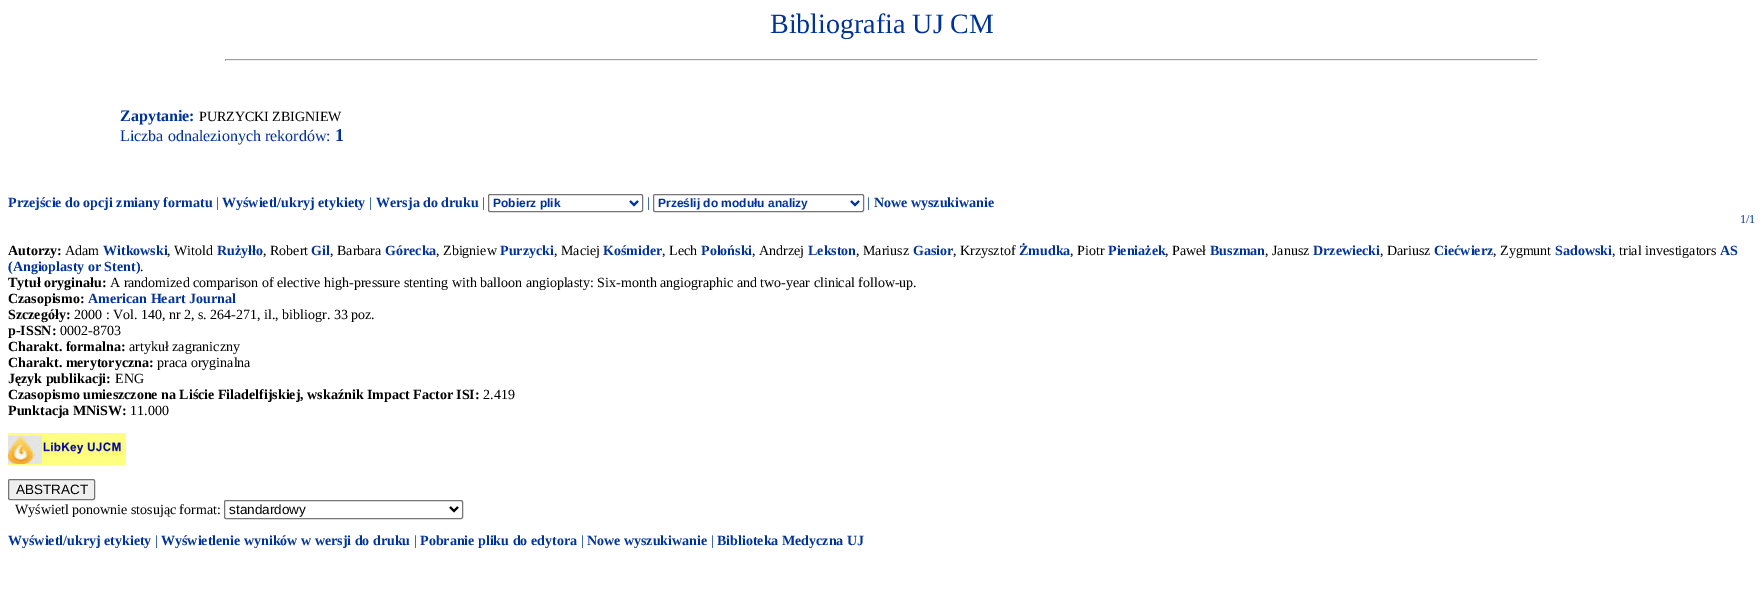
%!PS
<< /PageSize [1763 597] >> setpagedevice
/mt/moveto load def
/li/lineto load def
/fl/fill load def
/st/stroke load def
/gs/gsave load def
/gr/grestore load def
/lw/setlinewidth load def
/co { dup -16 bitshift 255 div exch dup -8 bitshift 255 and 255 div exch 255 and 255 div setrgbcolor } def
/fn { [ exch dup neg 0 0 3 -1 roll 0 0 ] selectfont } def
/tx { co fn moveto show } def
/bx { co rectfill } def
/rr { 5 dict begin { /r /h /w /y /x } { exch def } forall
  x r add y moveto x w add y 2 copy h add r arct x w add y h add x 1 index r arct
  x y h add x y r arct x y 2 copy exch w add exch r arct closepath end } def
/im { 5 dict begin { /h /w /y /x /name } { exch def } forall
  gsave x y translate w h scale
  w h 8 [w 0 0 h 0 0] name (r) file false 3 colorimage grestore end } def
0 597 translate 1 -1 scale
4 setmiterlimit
0 0 1763 597 16#FFFFFF bx
225 59 1313 1 16#9F9F9F bx
1537 59 1 2 16#EEEEEE bx
225 60 1313 1 16#EEEEEE bx
225 59 1 2 16#9F9F9F bx
16#767676 co
488.5 194.5 154 17 1.5 rr st
16#003399 co
2 lw
630 201 mt 634 205 li 638 201 li st
16#767676 co
1 lw
653.5 194.5 210 17 1.5 rr st
16#003399 co
2 lw
851 201 mt 855 205 li 859 201 li st
(media/1.raw) 8 433 118 32 im
16#EFEFEF co
8.5 479.5 86 20 1.5 rr gs fl gr
16#767676 co
1 lw
st
224.5 500.5 238 18 1.5 rr st
16#000000 co
2 lw
450 507 mt 454 511 li 458 507 li st
(Bibliografia UJ CM) 770 33 /LiberationSerif-Regular 28 16#003399 tx
(Zapytanie:) 120 121 /LiberationSerif-Bold 16 16#003399 tx
(PURZYCKI ZBIGNIEW) 199 121 /LiberationSerif-Regular 14 16#000000 tx
(Liczba odnalezionych rekordów:) 120 141 /LiberationSerif-Regular 16 16#003399 tx
(1) 335 141 /LiberationSerif-Bold 18 16#003399 tx
(Przejście do opcji zmiany formatu) 8 207 /LiberationSerif-Bold 14 16#003399 tx
(|) 216 207 /LiberationSerif-Regular 14 16#003399 tx
(Wyświetl/ukryj etykiety) 222 207 /LiberationSerif-Bold 14 16#003399 tx
(|) 369 207 /LiberationSerif-Regular 14 16#003399 tx
(Wersja do druku) 376 207 /LiberationSerif-Bold 14 16#003399 tx
(|) 482 207 /LiberationSerif-Regular 14 16#003399 tx
(Pobierz plik) 493 207 /LiberationSans-Bold 12 16#003399 tx
(|) 647 207 /LiberationSerif-Regular 14 16#003399 tx
(Prześlij do modułu analizy) 658 207 /LiberationSans-Bold 12 16#003399 tx
(|) 867 207 /LiberationSerif-Regular 14 16#003399 tx
(Nowe wyszukiwanie) 874 207 /LiberationSerif-Bold 14 16#003399 tx
(1/1) 1740 223 /LiberationSerif-Regular 12 16#003399 tx
(Autorzy:) 8 255 /LiberationSerif-Bold 14 16#000000 tx
(Adam) 65 255 /LiberationSerif-Regular 14 16#000000 tx
(Witkowski) 103 255 /LiberationSerif-Bold 14 16#003399 tx
(, Witold) 167 255 /LiberationSerif-Regular 14 16#000000 tx
(Rużyłło) 217 255 /LiberationSerif-Bold 14 16#003399 tx
(, Robert) 263 255 /LiberationSerif-Regular 14 16#000000 tx
(Gil) 311 255 /LiberationSerif-Bold 14 16#003399 tx
(, Barbara) 330 255 /LiberationSerif-Regular 14 16#000000 tx
(Górecka) 385 255 /LiberationSerif-Bold 14 16#003399 tx
(, Zbigniew) 436 255 /LiberationSerif-Regular 14 16#000000 tx
(Purzycki) 500 255 /LiberationSerif-Bold 14 16#003399 tx
(, Maciej) 554 255 /LiberationSerif-Regular 14 16#000000 tx
(Kośmider) 603 255 /LiberationSerif-Bold 14 16#003399 tx
(, Lech) 662 255 /LiberationSerif-Regular 14 16#000000 tx
(Poloński) 701 255 /LiberationSerif-Bold 14 16#003399 tx
(, Andrzej) 752 255 /LiberationSerif-Regular 14 16#000000 tx
(Lekston) 808 255 /LiberationSerif-Bold 14 16#003399 tx
(, Mariusz) 856 255 /LiberationSerif-Regular 14 16#000000 tx
(Gasior) 913 255 /LiberationSerif-Bold 14 16#003399 tx
(, Krzysztof) 953 255 /LiberationSerif-Regular 14 16#000000 tx
(Żmudka) 1019 255 /LiberationSerif-Bold 14 16#003399 tx
(, Piotr) 1070 255 /LiberationSerif-Regular 14 16#000000 tx
(Pieniażek) 1108 255 /LiberationSerif-Bold 14 16#003399 tx
(, Paweł) 1165 255 /LiberationSerif-Regular 14 16#000000 tx
(Buszman) 1210 255 /LiberationSerif-Bold 14 16#003399 tx
(, Janusz) 1265 255 /LiberationSerif-Regular 14 16#000000 tx
(Drzewiecki) 1313 255 /LiberationSerif-Bold 14 16#003399 tx
(, Dariusz) 1380 255 /LiberationSerif-Regular 14 16#000000 tx
(Ciećwierz) 1434 255 /LiberationSerif-Bold 14 16#003399 tx
(, Zygmunt) 1493 255 /LiberationSerif-Regular 14 16#000000 tx
(Sadowski) 1555 255 /LiberationSerif-Bold 14 16#003399 tx
(, trial investigators) 1612 255 /LiberationSerif-Regular 14 16#000000 tx
(AS) 1720 255 /LiberationSerif-Bold 14 16#003399 tx
(\(Angioplasty or Stent\)) 8 271 /LiberationSerif-Bold 14 16#003399 tx
(.) 140 271 /LiberationSerif-Regular 14 16#000000 tx
(Tytuł oryginału:) 8 287 /LiberationSerif-Bold 14 16#000000 tx
(A randomized comparison of elective high-pressure stenting with balloon angioplasty: Six-month angiographic and two-year clinical follow-up.) 110 287 /LiberationSerif-Regular 14 16#000000 tx
(Czasopismo:) 8 303 /LiberationSerif-Bold 14 16#000000 tx
(American Heart Journal) 88 303 /LiberationSerif-Bold 14 16#003399 tx
(Szczegóły:) 8 319 /LiberationSerif-Bold 14 16#000000 tx
(2000 : Vol. 140, nr 2, s. 264-271, il., bibliogr. 33 poz.) 74 319 /LiberationSerif-Regular 14 16#000000 tx
(p-ISSN:) 8 335 /LiberationSerif-Bold 14 16#000000 tx
(0002-8703) 60 335 /LiberationSerif-Regular 14 16#000000 tx
(Charakt. formalna:) 8 351 /LiberationSerif-Bold 14 16#000000 tx
(artykuł zagraniczny) 129 351 /LiberationSerif-Regular 14 16#000000 tx
(Charakt. merytoryczna:) 8 367 /LiberationSerif-Bold 14 16#000000 tx
(praca oryginalna) 157 367 /LiberationSerif-Regular 14 16#000000 tx
(Język publikacji:) 8 383 /LiberationSerif-Bold 14 16#000000 tx
(ENG) 115 383 /LiberationSerif-Regular 14 16#000000 tx
(Czasopismo umieszczone na Liście Filadelfijskiej, wskaźnik Impact Factor ISI:) 8 399 /LiberationSerif-Bold 14 16#000000 tx
(2.419) 483 399 /LiberationSerif-Regular 14 16#000000 tx
(Punktacja MNiSW:) 8 415 /LiberationSerif-Bold 14 16#000000 tx
(11.000) 130 415 /LiberationSerif-Regular 14 16#000000 tx
(ABSTRACT) 16 494 /LiberationSans-Regular 13.5 16#000000 tx
(Wyświetl ponownie stosując format:) 15 514 /LiberationSerif-Regular 14 16#000000 tx
(standardowy) 229 514 /LiberationSans-Regular 13.5 16#000000 tx
(Wyświetl/ukryj etykiety) 8 545 /LiberationSerif-Bold 14 16#003399 tx
(|) 155 545 /LiberationSerif-Regular 14 16#003399 tx
(Wyświetlenie wyników w wersji do druku) 161 545 /LiberationSerif-Bold 14 16#003399 tx
(|) 414 545 /LiberationSerif-Regular 14 16#003399 tx
(Pobranie pliku do edytora) 420 545 /LiberationSerif-Bold 14 16#003399 tx
(|) 581 545 /LiberationSerif-Regular 14 16#003399 tx
(Nowe wyszukiwanie) 587 545 /LiberationSerif-Bold 14 16#003399 tx
(|) 711 545 /LiberationSerif-Regular 14 16#003399 tx
(Biblioteka Medyczna UJ) 717 545 /LiberationSerif-Bold 14 16#003399 tx
showpage
